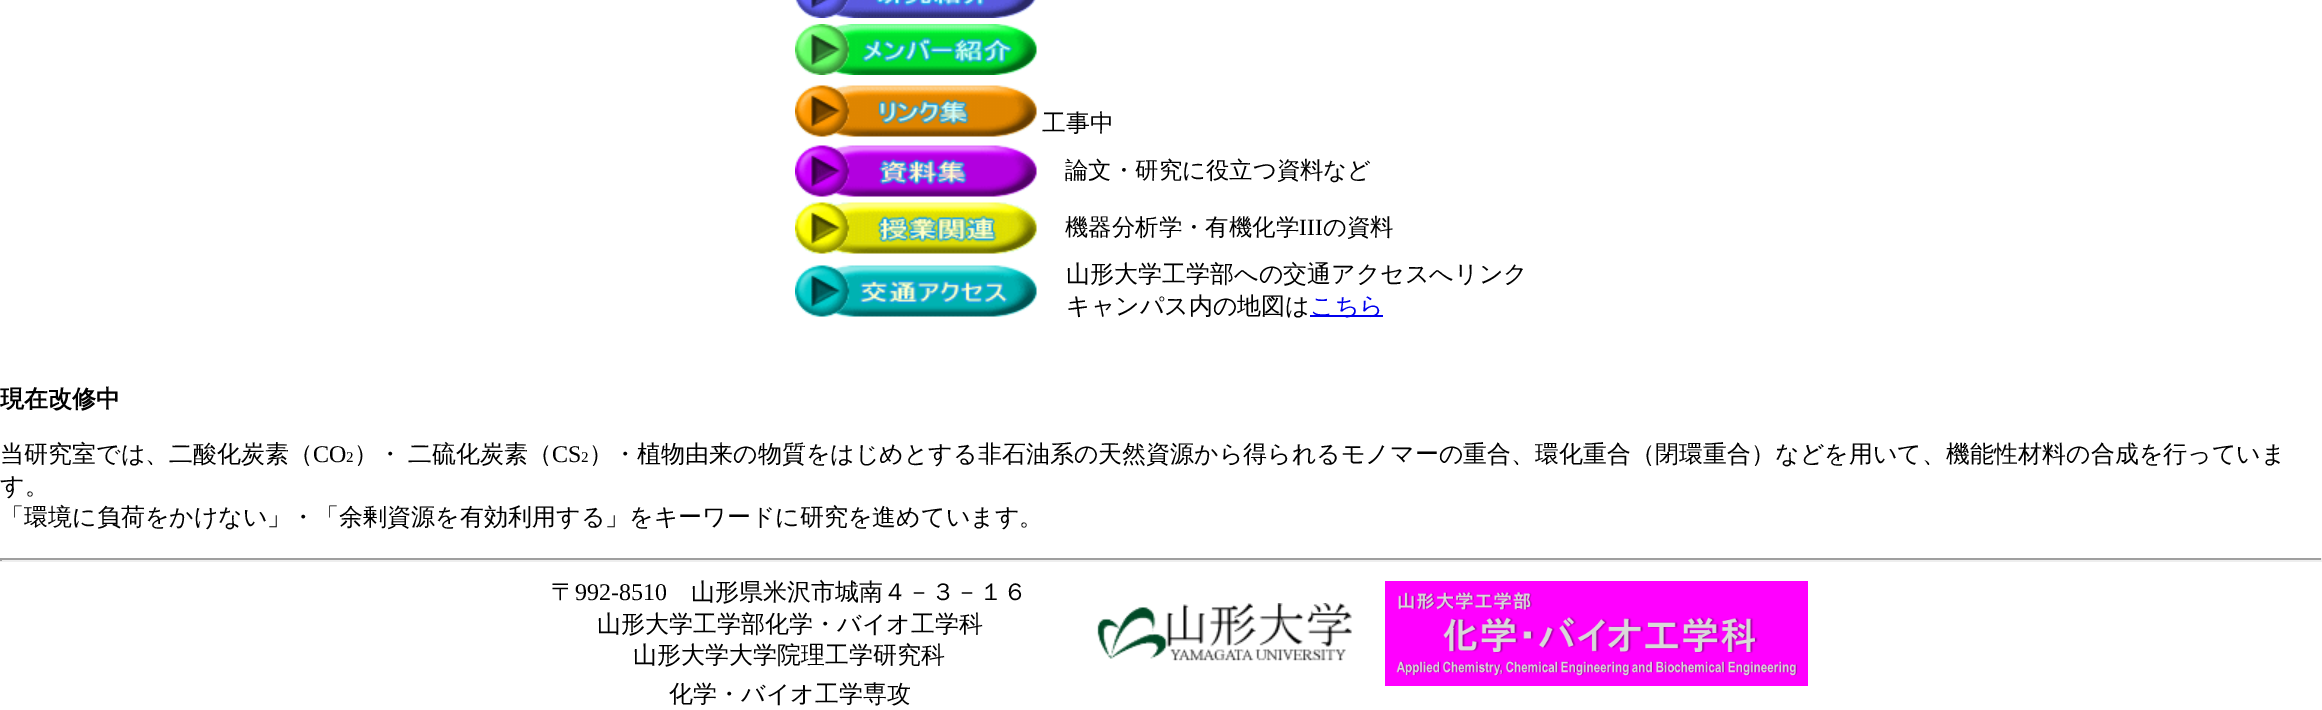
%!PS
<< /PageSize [2322 710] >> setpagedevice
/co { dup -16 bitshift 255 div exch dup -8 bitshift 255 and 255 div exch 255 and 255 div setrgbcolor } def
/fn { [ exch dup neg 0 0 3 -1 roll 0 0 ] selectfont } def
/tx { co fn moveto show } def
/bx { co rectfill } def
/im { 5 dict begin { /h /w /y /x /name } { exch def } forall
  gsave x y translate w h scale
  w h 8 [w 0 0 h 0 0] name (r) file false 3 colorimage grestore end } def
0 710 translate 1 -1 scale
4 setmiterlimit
0 0 2322 710 16#FFFFFF bx
(media/1.raw) 795 0 241 18 im
(media/2.raw) 795 24 242 51 im
(media/3.raw) 795 85 242 52 im
(media/4.raw) 795 145 242 52 im
(media/5.raw) 795 202 242 52 im
(media/6.raw) 795 265 242 52 im
1310 315 73 2 16#0000EE bx
0 558 2322 2 16#9F9F9F bx
2321 558 1 3 16#EEEEEE bx
0 560 2322 2 16#EEEEEE bx
0 558 2 3 16#9F9F9F bx
(media/7.raw) 1097 603 255 58 im
1385 581 423 105 16#FF00FF bx
(media/8.raw) 1396 592 402 84 im
(工事中) 1042 131 /WenQuanYiZenHei-Medium 24 16#000000 tx
(論文・研究に役立つ資料など) 1065 178 /WenQuanYiZenHei-Medium 23.4 16#000000 tx
(機器分析学・有機化学) 1065 235 /WenQuanYiZenHei-Medium 23.4 16#000000 tx
(III) 1299 235 /LiberationSerif-Regular 23.4 16#000000 tx
(の資料) 1323 235 /WenQuanYiZenHei-Medium 23.4 16#000000 tx
(山形大学工学部への交通アクセスへリンク) 1066 282 /WenQuanYiZenHei-Medium 24 16#000000 tx
(キャンパス内の地図は) 1066 314 /WenQuanYiZenHei-Medium 24 16#000000 tx
(こちら) 1310 314 /WenQuanYiZenHei-Medium 24 16#0000EE tx
(現在改修中) 0 407 /WenQuanYiZenHei-Bold 24 16#000000 tx
(当研究室では、二酸化炭素（) 0 462 /WenQuanYiZenHei-Medium 24 16#000000 tx
(CO) 313 462 /LiberationSerif-Regular 24 16#000000 tx
(2) 346 462 /LiberationSerif-Regular 15 16#000000 tx
(）・) 354 462 /WenQuanYiZenHei-Medium 24 16#000000 tx
(二硫化炭素（) 408 462 /WenQuanYiZenHei-Medium 24 16#000000 tx
(CS) 552 462 /LiberationSerif-Regular 24 16#000000 tx
(2) 581 462 /LiberationSerif-Regular 15 16#000000 tx
(）・植物由来の物質をはじめとする非石油系の天然資源から得られるモノマーの重合、環化重合（閉環重合）などを用いて、機能性材料の合成を行っていま) 589 462 /WenQuanYiZenHei-Medium 24 16#000000 tx
(す。) 0 494 /WenQuanYiZenHei-Medium 24 16#000000 tx
(「環境に負荷をかけない」・「余剰資源を有効利用する」をキーワードに研究を進めています。) 0 525 /WenQuanYiZenHei-Medium 24 16#000000 tx
(〒) 551 600 /WenQuanYiZenHei-Medium 24 16#000000 tx
(992-8510) 575 600 /LiberationSerif-Regular 24 16#000000 tx
(山形県米沢市城南４－３－１６) 691 600 /WenQuanYiZenHei-Medium 24 16#000000 tx
(山形大学工学部化学・バイオ工学科) 597 632 /WenQuanYiZenHei-Medium 24 16#000000 tx
(山形大学大学院理工学研究科) 633 663 /WenQuanYiZenHei-Medium 24 16#000000 tx
(化学・バイオ工学専攻) 669 702 /WenQuanYiZenHei-Medium 24 16#000000 tx
showpage
